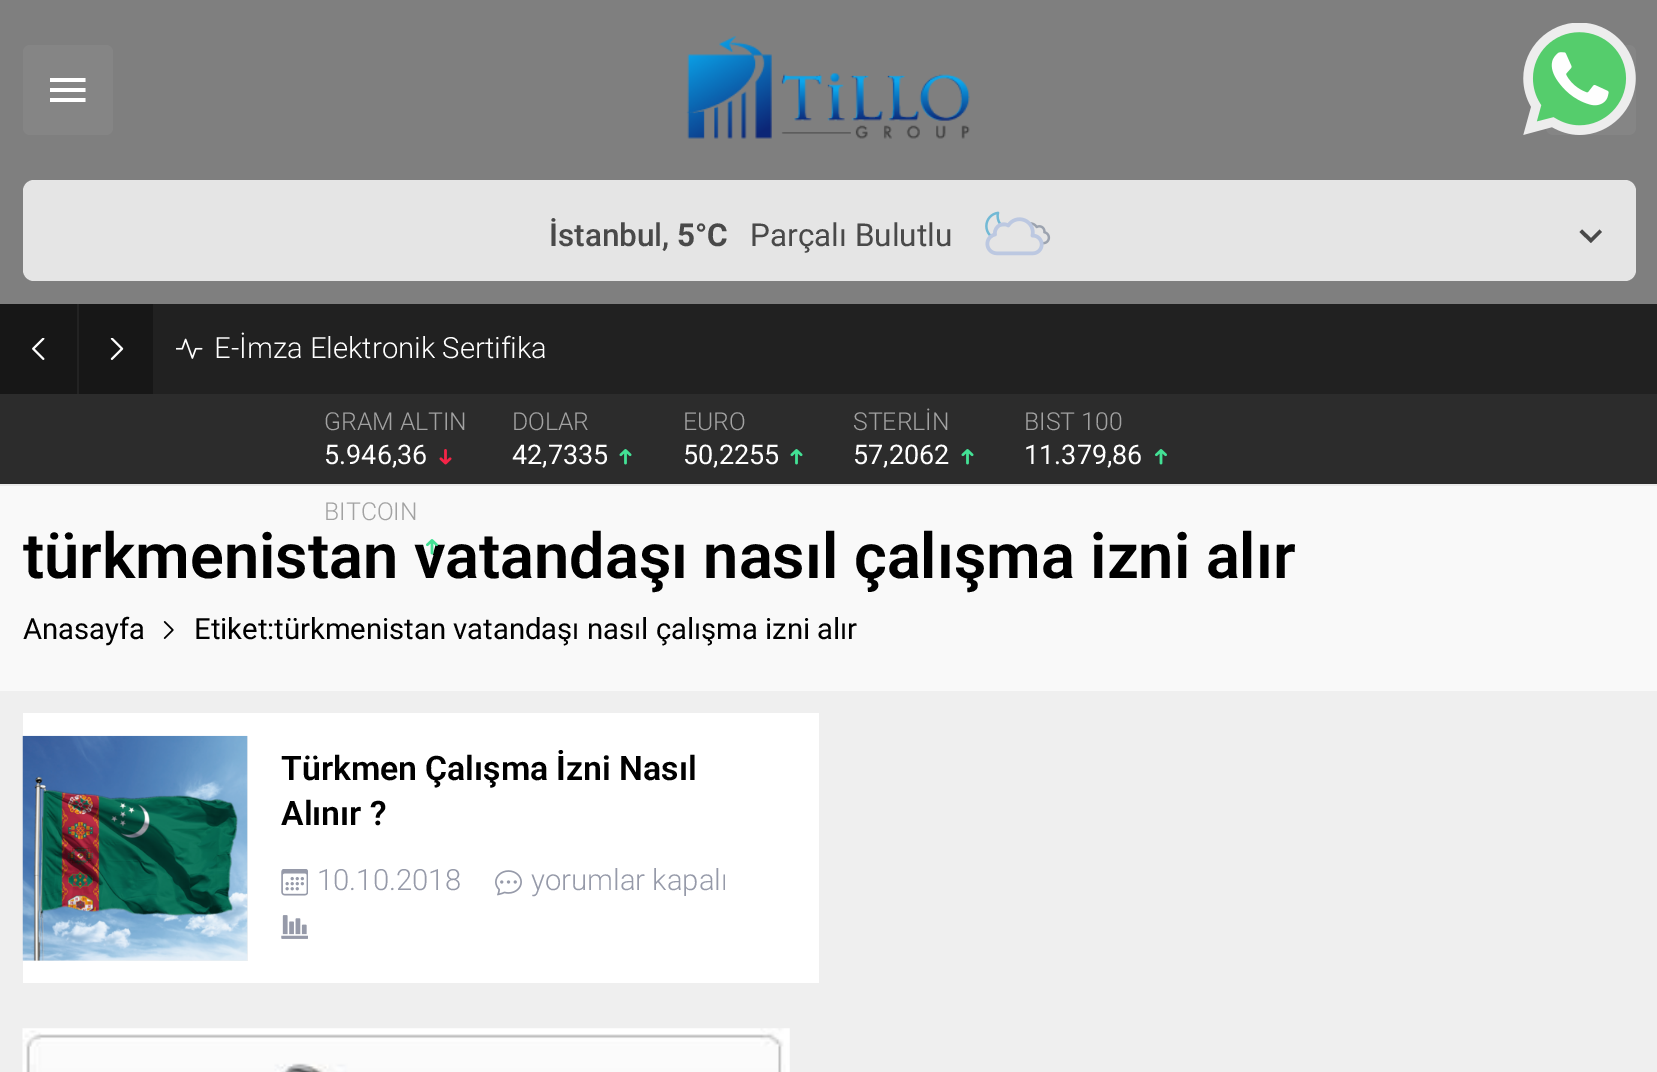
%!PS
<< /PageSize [1657 1072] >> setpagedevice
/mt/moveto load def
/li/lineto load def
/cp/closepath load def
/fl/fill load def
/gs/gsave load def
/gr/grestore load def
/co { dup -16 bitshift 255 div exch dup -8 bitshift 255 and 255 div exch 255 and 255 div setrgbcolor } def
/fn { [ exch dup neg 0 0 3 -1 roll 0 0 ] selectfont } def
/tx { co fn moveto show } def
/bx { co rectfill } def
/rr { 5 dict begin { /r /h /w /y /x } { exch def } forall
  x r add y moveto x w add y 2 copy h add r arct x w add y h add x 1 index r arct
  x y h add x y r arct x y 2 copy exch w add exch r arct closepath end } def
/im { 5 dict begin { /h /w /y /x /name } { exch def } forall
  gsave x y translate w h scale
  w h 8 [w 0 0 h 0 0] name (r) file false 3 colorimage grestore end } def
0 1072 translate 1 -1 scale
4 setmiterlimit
0 0 1657 1072 16#EFEFEF bx
0 0 1657 304 16#7F7F7F bx
16#858585 co
1546 45 90 90 7 rr fl
(media/1.raw) 1523 23 113 112 im
0 484 1657 2 16#EAEAEA bx
16#858585 co
23 45 90 90 7 rr fl
gs
50 72 36 36 rectclip
16#FFFFFF co
49.5 102 mt 85.5 102 li 85.5 98 li 49.5 98 li cp 49.5 92 mt 85.5 92 li 85.5 88 li 49.5 88 li cp 49.5 78 mt 49.5 82 li 85.5 82 li 85.5 78 li cp fl
gr
(media/2.raw) 686 36 284 103 im
16#E5E5E5 co
23 180 1613 101 11 rr fl
(media/3.raw) 985 211 66 45 im
16#494949 co
1599.5 229.5 mt 1591 238 li 1582 229.5 li 1579.5 232 li 1591 243 li 1602 232 li cp fl
153 304 1504 90 16#212121 bx
0 304 153 90 16#171717 bx
(media/4.raw) 32 338 13 22 im
77 304 2 90 16#232323 bx
(media/5.raw) 110 338 14 22 im
(media/6.raw) 176 338 27 21 im
0 394 1657 90 16#2C2C2C bx
(media/7.raw) 439 449 13 16 im
(media/8.raw) 619 449 13 16 im
(media/8.raw) 790 449 13 16 im
(media/8.raw) 961 449 13 16 im
(media/9.raw) 1155 449 12 16 im
0 486 1657 205 16#F9F9F9 bx
(media/11.raw) 163 621 11 18 im
23 713 796 270 16#FFFFFF bx
23 736 225 225 16#F0F0F0 bx
(media/12.raw) 22 735 226 226 im
(media/13.raw) 281 869 27 27 im
(media/14.raw) 495 870 27 26 im
(media/15.raw) 281 915 27 24 im
(media/16.raw) 22 1028 768 44 im
(İstanbul,) 549 246 /Roboto-Medium 31.5 16#494949 tx
(5°C) 677 246 /Roboto-Bold 31.5 16#494949 tx
(Parçalı Bulutlu) 750 246 /Roboto-Regular 31.5 16#494949 tx
(E-İmza Elektronik Sertifika) 214 358 /Roboto-Light 29.25 16#FFFFFF tx
(GRAM ALTIN) 324 430 /Roboto-Light 24.75 16#A2A2A2 tx
(5.946,36) 324 464 /Roboto-Regular 27 16#FFFFFF tx
(DOLAR) 512 430 /Roboto-Light 24.75 16#A2A2A2 tx
(42,7335) 512 464 /Roboto-Regular 27 16#FFFFFF tx
(EURO) 683 430 /Roboto-Light 24.75 16#A2A2A2 tx
(50,2255) 683 464 /Roboto-Regular 27 16#FFFFFF tx
(STERLİN) 853 430 /Roboto-Light 24.75 16#A2A2A2 tx
(57,2062) 853 464 /Roboto-Regular 27 16#FFFFFF tx
(BIST 100) 1024 430 /Roboto-Light 24.75 16#A2A2A2 tx
(11.379,86) 1024 464 /Roboto-Regular 27 16#FFFFFF tx
(BITCOIN) 324 520 /Roboto-Light 24.75 16#A2A2A2 tx
(türkmenistan vatandaşı nasıl çalışma izni alır) 23 578 /Roboto-SemiBold 63 16#000000 tx
(media/10.raw) 426 539 12 16 im
(Anasayfa) 23 639 /Roboto-Regular 29.25 16#000000 tx
(Etiket:türkmenistan vatandaşı nasıl çalışma izni alır) 194 639 /Roboto-Regular 29.25 16#000000 tx
(Türkmen Çalışma İzni Nasıl) 281 780 /Roboto-SemiBold 33.75 16#000000 tx
(Alınır ?) 281 825 /Roboto-SemiBold 33.75 16#000000 tx
(10.10.2018) 317 890 /Roboto-Light 29.25 16#969AA9 tx
(yorumlar kapalı) 531 890 /Roboto-Light 29.25 16#969AA9 tx
showpage
